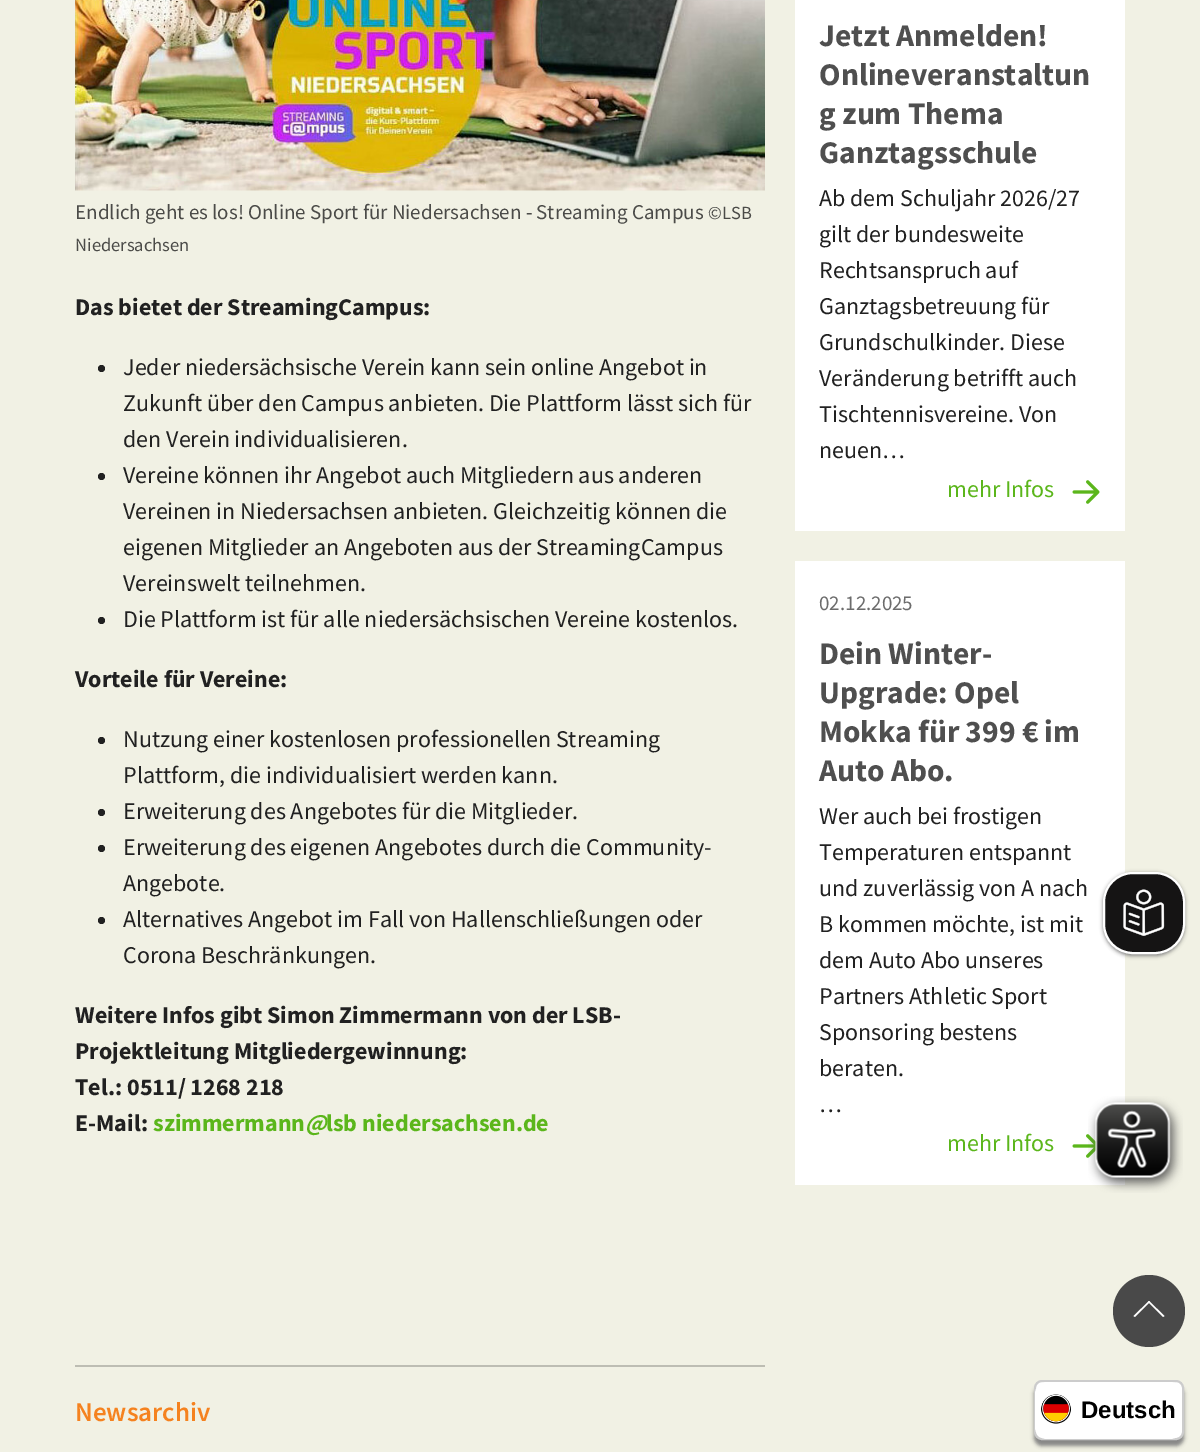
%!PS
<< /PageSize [1200 1452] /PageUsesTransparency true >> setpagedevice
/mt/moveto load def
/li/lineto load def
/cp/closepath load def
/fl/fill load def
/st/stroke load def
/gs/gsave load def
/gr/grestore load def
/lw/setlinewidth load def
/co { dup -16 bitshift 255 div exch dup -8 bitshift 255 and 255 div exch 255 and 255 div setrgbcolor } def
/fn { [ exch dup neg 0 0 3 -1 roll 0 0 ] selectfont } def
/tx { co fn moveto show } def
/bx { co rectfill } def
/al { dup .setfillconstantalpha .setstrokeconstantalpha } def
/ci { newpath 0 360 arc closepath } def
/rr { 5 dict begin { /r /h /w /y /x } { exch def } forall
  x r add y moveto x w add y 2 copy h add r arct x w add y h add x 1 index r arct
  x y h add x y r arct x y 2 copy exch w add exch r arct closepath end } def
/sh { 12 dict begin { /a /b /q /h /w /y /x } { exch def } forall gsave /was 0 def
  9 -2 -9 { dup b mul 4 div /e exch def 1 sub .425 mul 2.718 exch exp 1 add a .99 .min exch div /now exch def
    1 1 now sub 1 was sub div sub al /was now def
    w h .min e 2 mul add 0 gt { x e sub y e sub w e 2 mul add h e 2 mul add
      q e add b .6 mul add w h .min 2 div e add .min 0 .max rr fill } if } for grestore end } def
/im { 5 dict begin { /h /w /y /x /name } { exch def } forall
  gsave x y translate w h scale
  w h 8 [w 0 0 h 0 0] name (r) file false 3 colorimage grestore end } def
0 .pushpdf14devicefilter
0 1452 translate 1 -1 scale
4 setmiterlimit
0 0 1200 1452 16#F1F1E4 bx
(media/1.raw) 75 0 690 191 im
16#212121 co
101.5 368.5 3.5 ci fl
101.5 476.5 3.5 ci fl
101.5 620.5 3.5 ci fl
101.5 740.5 3.5 ci fl
101.5 812.5 3.5 ci fl
101.5 848.5 3.5 ci fl
101.5 920.5 3.5 ci fl
795 0 330 531 16#FFFFFF bx
(media/2.raw) 1072 480 28 24 im
795 561 330 624 16#FFFFFF bx
(media/3.raw) 1072 1134 24 24 im
75 1365 690 2 16#BDBDB3 bx
16#848484 co
1103 873 82 83 30 2 1 sh
16#151414 co
1104 873 80 80 29 rr gs fl gr
16#FFFFFF co
2 lw
st
(media/4.raw) 1123 889 42 47 im
16#848484 co
1034 1386 150 60 8 2 1 sh
16#FFFFFF co
1035 1381 148 58 7 rr gs fl gr
16#CCCCCC co
st
16#FFFFFF co
1035 1382 147 57 12 rr fl
(media/5.raw) 1041 1394 30 30 im
16#494949 co
1149 1311 36 ci fl
16#FFFFFF co
1149 1301 mt 1164.5 1316 li 1163 1317 li 1148 1302 li cp fl
1149 1301 mt 1150 1302 li 1135 1317 li 1133.5 1316 li cp fl
(media/6.raw) 1088 1096 95 97 im
(Endlich geht es los! Online Sport für Niedersachsen - Streaming Campus) 75 219 /SourceSansPro-Regular 21 16#4B4B48 tx
(©LSB) 708 219 /SourceSansPro-Regular 18.5 16#4B4B48 tx
(Niedersachsen) 75 251 /SourceSansPro-Regular 18.5 16#4B4B48 tx
(Das bietet der StreamingCampus:) 75 315 /SourceSansPro-Bold 24 16#212121 tx
(Jeder niedersächsische Verein kann sein online Angebot in) 123 375 /SourceSansPro-Regular 24 16#212121 tx
(Zukunft über den Campus anbieten. Die Plattform lässt sich für) 123 411 /SourceSansPro-Regular 24 16#212121 tx
(den Verein individualisieren.) 123 447 /SourceSansPro-Regular 24 16#212121 tx
(Vereine können ihr Angebot auch Mitgliedern aus anderen) 123 483 /SourceSansPro-Regular 24 16#212121 tx
(Vereinen in Niedersachsen anbieten. Gleichzeitig können die) 123 519 /SourceSansPro-Regular 24 16#212121 tx
(eigenen Mitglieder an Angeboten aus der StreamingCampus) 123 555 /SourceSansPro-Regular 24 16#212121 tx
(Vereinswelt teilnehmen.) 123 591 /SourceSansPro-Regular 24 16#212121 tx
(Die Plattform ist für alle niedersächsischen Vereine kostenlos.) 123 627 /SourceSansPro-Regular 24 16#212121 tx
(Vorteile für Vereine:) 75 687 /SourceSansPro-Bold 24 16#212121 tx
(Nutzung einer kostenlosen professionellen Streaming) 123 747 /SourceSansPro-Regular 24 16#212121 tx
(Plattform, die individualisiert werden kann.) 123 783 /SourceSansPro-Regular 24 16#212121 tx
(Erweiterung des Angebotes für die Mitglieder.) 123 819 /SourceSansPro-Regular 24 16#212121 tx
(Erweiterung des eigenen Angebotes durch die Community-) 123 855 /SourceSansPro-Regular 24 16#212121 tx
(Angebote.) 123 891 /SourceSansPro-Regular 24 16#212121 tx
(Alternatives Angebot im Fall von Hallenschließungen oder) 123 927 /SourceSansPro-Regular 24 16#212121 tx
(Corona Beschränkungen.) 123 963 /SourceSansPro-Regular 24 16#212121 tx
(Weitere Infos gibt Simon Zimmermann von der LSB-) 75 1023 /SourceSansPro-Bold 24 16#212121 tx
(Projektleitung Mitgliedergewinnung:) 75 1059 /SourceSansPro-Bold 24 16#212121 tx
(Tel.: 0511/ 1268 218) 75 1095 /SourceSansPro-Bold 24 16#212121 tx
(E-Mail:) 75 1131 /SourceSansPro-Bold 24 16#212121 tx
(szimmermann) 153 1131 /SourceSansPro-Bold 24 16#5BB61B tx
(@) 305 1131 /SourceSansPro-BoldItalic 24 16#5BB61B tx
(lsb niedersachsen.de) 326 1131 /SourceSansPro-Bold 24 16#5BB61B tx
(Jetzt Anmelden!) 819 46 /SourceSansPro-Bold 31.5 16#4F4F4F tx
(Onlineveranstaltun) 819 85 /SourceSansPro-Bold 31.5 16#4F4F4F tx
(g zum Thema) 819 124 /SourceSansPro-Bold 31.5 16#4F4F4F tx
(Ganztagsschule) 819 163 /SourceSansPro-Bold 31.5 16#4F4F4F tx
(Ab dem Schuljahr 2026/27) 819 206 /SourceSansPro-Regular 24 16#212121 tx
(gilt der bundesweite) 819 242 /SourceSansPro-Regular 24 16#212121 tx
(Rechtsanspruch auf) 819 278 /SourceSansPro-Regular 24 16#212121 tx
(Ganztagsbetreuung für) 819 314 /SourceSansPro-Regular 24 16#212121 tx
(Grundschulkinder. Diese) 819 350 /SourceSansPro-Regular 24 16#212121 tx
(Veränderung betrifft auch) 819 386 /SourceSansPro-Regular 24 16#212121 tx
(Tischtennisvereine. Von) 819 422 /SourceSansPro-Regular 24 16#212121 tx
(neuen…) 819 458 /SourceSansPro-Regular 24 16#212121 tx
(mehr Infos) 947 497 /SourceSansPro-Regular 24 16#5BB61B tx
(02.12.2025) 819 610 /SourceSansPro-Regular 21 16#6C6C6C tx
(Dein Winter-) 819 664 /SourceSansPro-Bold 31.5 16#4F4F4F tx
(Upgrade: Opel) 819 703 /SourceSansPro-Bold 31.5 16#4F4F4F tx
(Mokka für 399 € im) 819 742 /SourceSansPro-Bold 31.5 16#4F4F4F tx
(Auto Abo.) 819 781 /SourceSansPro-Bold 31.5 16#4F4F4F tx
(Wer auch bei frostigen) 819 824 /SourceSansPro-Regular 24 16#212121 tx
(Temperaturen entspannt) 819 860 /SourceSansPro-Regular 24 16#212121 tx
(und zuverlässig von A nach) 819 896 /SourceSansPro-Regular 24 16#212121 tx
(B kommen möchte, ist mit) 819 932 /SourceSansPro-Regular 24 16#212121 tx
(dem Auto Abo unseres) 819 968 /SourceSansPro-Regular 24 16#212121 tx
(Partners Athletic Sport) 819 1004 /SourceSansPro-Regular 24 16#212121 tx
(Sponsoring bestens) 819 1040 /SourceSansPro-Regular 24 16#212121 tx
(beraten.) 819 1076 /SourceSansPro-Regular 24 16#212121 tx
(…) 819 1112 /SourceSansPro-Regular 24 16#212121 tx
(mehr Infos) 947 1151 /SourceSansPro-Regular 24 16#5BB61B tx
(Newsarchiv) 75 1421 /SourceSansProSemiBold-SemiBold 27 16#F5821F tx
(Deutsch) 1081 1418 /LiberationSans-Bold 24 16#000000 tx
.poppdf14devicefilter showpage
